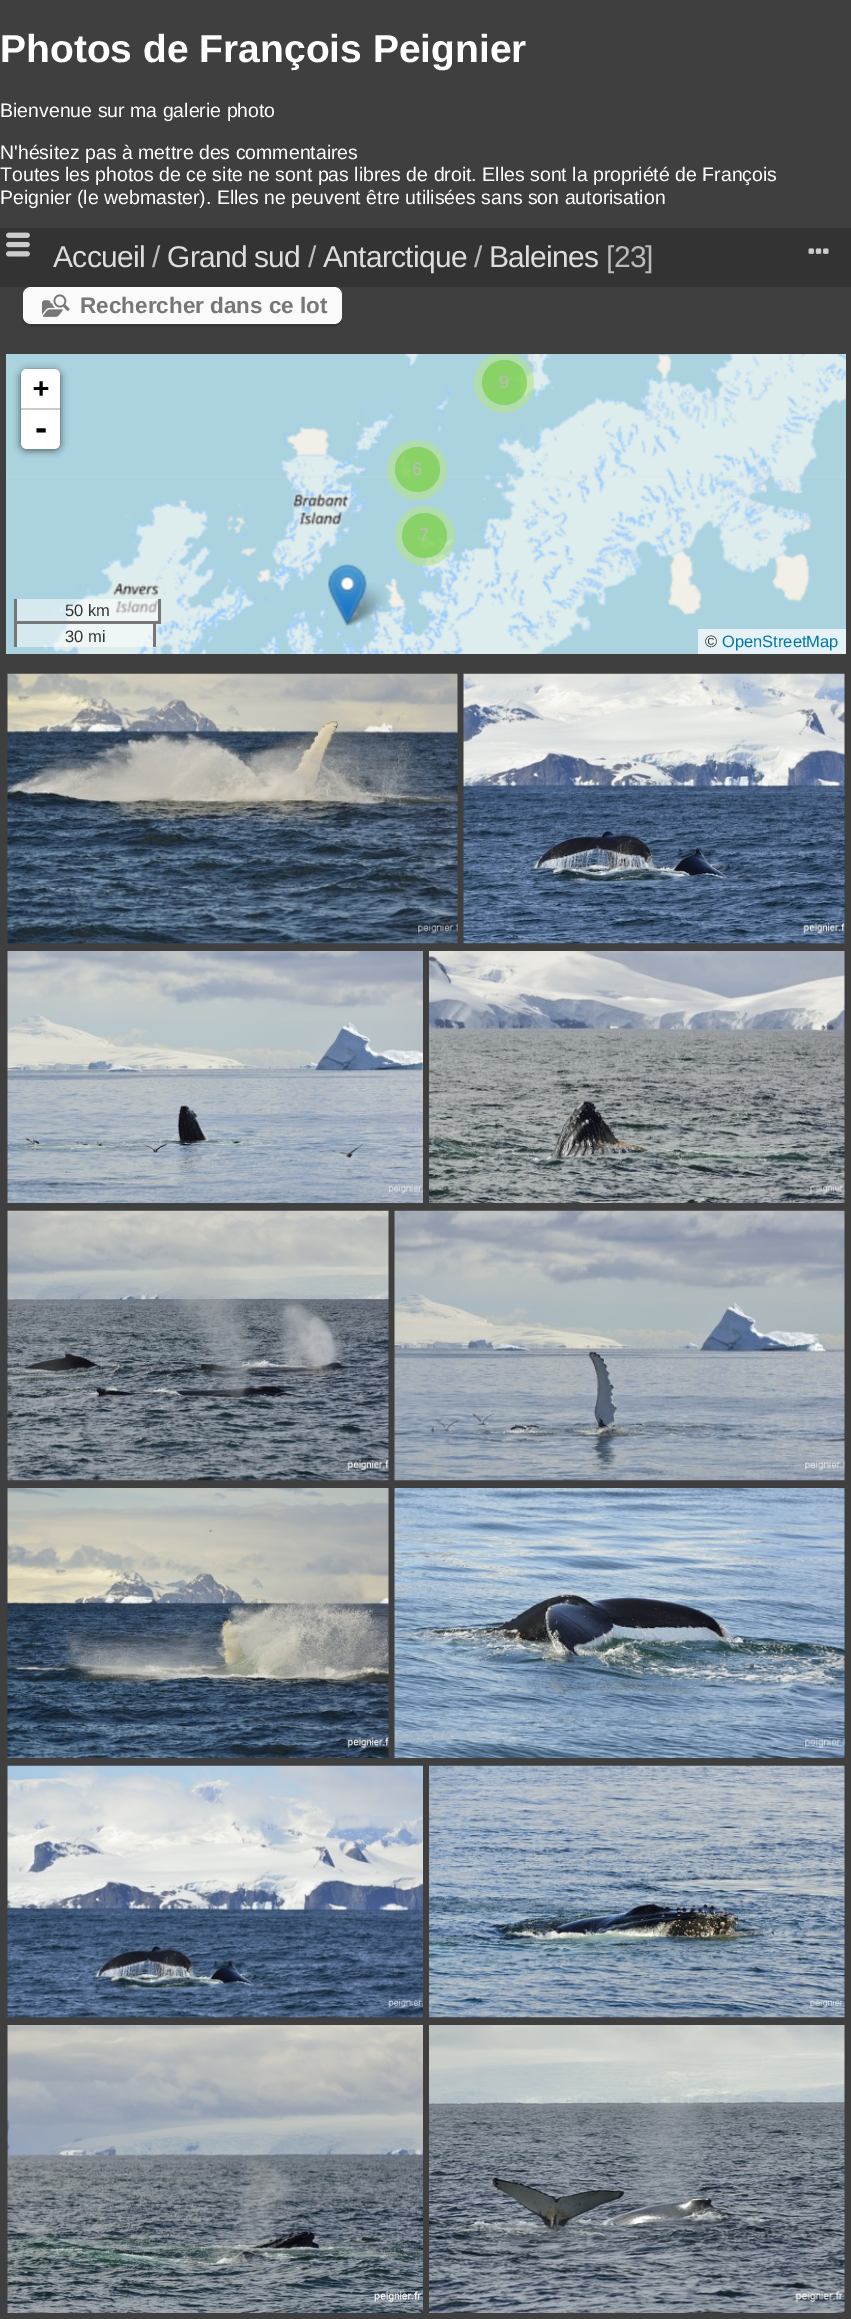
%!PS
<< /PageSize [851 2319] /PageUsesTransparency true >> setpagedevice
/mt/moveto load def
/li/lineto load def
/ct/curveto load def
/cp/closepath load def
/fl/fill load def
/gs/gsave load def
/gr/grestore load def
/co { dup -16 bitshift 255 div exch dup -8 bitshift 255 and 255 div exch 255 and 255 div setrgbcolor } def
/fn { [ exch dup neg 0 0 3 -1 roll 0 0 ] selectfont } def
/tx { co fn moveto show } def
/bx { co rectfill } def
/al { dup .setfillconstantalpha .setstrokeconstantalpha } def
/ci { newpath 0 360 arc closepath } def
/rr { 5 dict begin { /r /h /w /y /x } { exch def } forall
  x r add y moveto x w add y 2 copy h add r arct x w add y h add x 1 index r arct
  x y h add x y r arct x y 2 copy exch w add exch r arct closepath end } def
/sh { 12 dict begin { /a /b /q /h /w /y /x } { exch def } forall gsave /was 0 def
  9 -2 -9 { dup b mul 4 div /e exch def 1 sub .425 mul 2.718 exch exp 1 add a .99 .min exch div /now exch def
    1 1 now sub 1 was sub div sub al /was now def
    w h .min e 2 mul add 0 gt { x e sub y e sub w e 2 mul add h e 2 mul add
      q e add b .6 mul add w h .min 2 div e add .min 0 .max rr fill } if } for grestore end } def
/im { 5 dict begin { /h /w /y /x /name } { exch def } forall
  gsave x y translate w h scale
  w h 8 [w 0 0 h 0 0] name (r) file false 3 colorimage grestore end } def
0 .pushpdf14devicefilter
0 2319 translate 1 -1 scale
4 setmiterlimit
0 0 851 2319 16#3F3F3F bx
0 228 851 59 16#333333 bx
(media/1.raw) 6 232 24 25 im
(media/2.raw) 808 248 21 6 im
16#363636 co
23 319 mt 23 324 27 327 31 327 ct 334 327 li 338 327 342 323 342 319 ct 342 316 li 342 321 339 324 334 324 ct 30 324 li 27 324 24 322 23 319 ct cp fl
16#FAFAFA co
23 287 319 37 8 rr fl
(media/3.raw) 42 294 28 23 im
(media/4.raw) 6 354 377 124 im
(media/5.raw) 383 354 384 124 im
(media/6.raw) 767 354 79 124 im
(media/7.raw) 6 476 377 178 im
(media/8.raw) 383 476 384 178 im
(media/9.raw) 767 476 79 153 im
gs
6 354 840 300 rectclip
0.6 al
16#B5E28C co
504 383 30 ci fl
gr
0.6 al
16#6ECC39 co
504.5 382.5 22.5 ci fl
16#B5E28C co
417 470 30 ci fl
16#6ECC39 co
417.5 469.5 22.5 ci fl
16#B5E28C co
425 536 30 ci fl
16#6ECC39 co
424.5 535.5 22.5 ci fl
1 al
(media/11.raw) 342 583 45 43 im
(media/10.raw) 328 563 39 63 im
16#000000 co
21 371 39 79 6 4 .65 sh
16#FFFFFF co
27 369 mt 54 369 li 57.5 369 60 371.5 60 375 ct 60 410 li 21 410 li 21 375 li 21 371.5 23.5 369 27 369 ct cp fl
21 408 39 2 16#CCCCCC bx
16#FFFFFF co
21 410 mt 60 410 li 60 443 li 60 446.5 57.5 449 54 449 ct 27 449 li 23.5 449 21 446.5 21 443 ct cp fl
0.5 al
17 599 141 22 16#FFFFFF bx
1 al
158 599 3 25 16#777777 bx
156 621 5 3 16#777777 bx
14 599 3 25 16#777777 bx
0.5 al
17 624 136 23 16#FFFFFF bx
1 al
14 621 142 3 16#777777 bx
153 621 3 26 16#777777 bx
14 621 3 26 16#777777 bx
698 629 148 25 16#E6F2F5 bx
(media/12.raw) 7 673 451 271 im
(media/13.raw) 463 673 382 271 im
(media/14.raw) 7 951 416 252 im
(media/15.raw) 429 951 416 252 im
(media/16.raw) 7 1210 382 271 im
(media/17.raw) 394 1210 451 271 im
(media/18.raw) 7 1488 382 270 im
(media/19.raw) 394 1488 451 270 im
(media/20.raw) 7 1765 416 253 im
(media/21.raw) 429 1765 416 253 im
(media/22.raw) 7 2025 416 288 im
(media/23.raw) 429 2025 416 288 im
(Photos de François Peignier) 0 62 /LiberationSans-Bold 39 16#FFFFFF tx
(Bienvenue sur ma galerie photo) 0 117 /LiberationSans-Regular 19.5 16#FFFFFF tx
(N'hésitez pas à mettre des commentaires) 0 159 /LiberationSans-Regular 19.5 16#FFFFFF tx
(Toutes les photos de ce site ne sont pas libres de droit. Elles sont la propriété de François) 0 181 /LiberationSans-Regular 19.5 16#FFFFFF tx
(Peignier \(le webmaster\). Elles ne peuvent être utilisées sans son autorisation) 0 204 /LiberationSans-Regular 19.5 16#FFFFFF tx
/LiberationSans-Regular 30 fn
16#DDDDDD co
53 267 mt -.75 0 (Accueil) ashow
16#BBBBBB co
152 267 mt -.75 0 (/) ashow
16#DDDDDD co
167 267 mt -.75 0 (Grand sud) ashow
16#BBBBBB co
308 267 mt -.75 0 (/) ashow
16#DDDDDD co
323 267 mt -.75 0 (Antarctique) ashow
16#BBBBBB co
474 267 mt -.75 0 (/) ashow
16#DDDDDD co
489 267 mt -.75 0 (Baleines) ashow
16#BBBBBB co
606 267 mt -.75 0 ([23]) ashow
(Rechercher dans ce lot) 80 313 /LiberationSans-Bold 22.5 16#777777 tx
(9) 499 388 /LiberationSans-Regular 18 16#BBBBBB tx
(6) 412 475 /LiberationSans-Regular 18 16#BBBBBB tx
(7) 419 541 /LiberationSans-Regular 18 16#BBBBBB tx
(+) 33 397 /DejaVuSansMono-Bold 27 16#000000 tx
(-) 32 439 /DejaVuSansMono-Bold 30 16#000000 tx
(50 km) 65 616 /LiberationSans-Regular 16.5 16#333333 tx
(30 mi) 65 642 /LiberationSans-Regular 16.5 16#333333 tx
(©) 705 647 /LiberationSans-Regular 16.5 16#333333 tx
(OpenStreetMap) 722 647 /LiberationSans-Regular 16.5 16#0078A8 tx
.poppdf14devicefilter showpage
